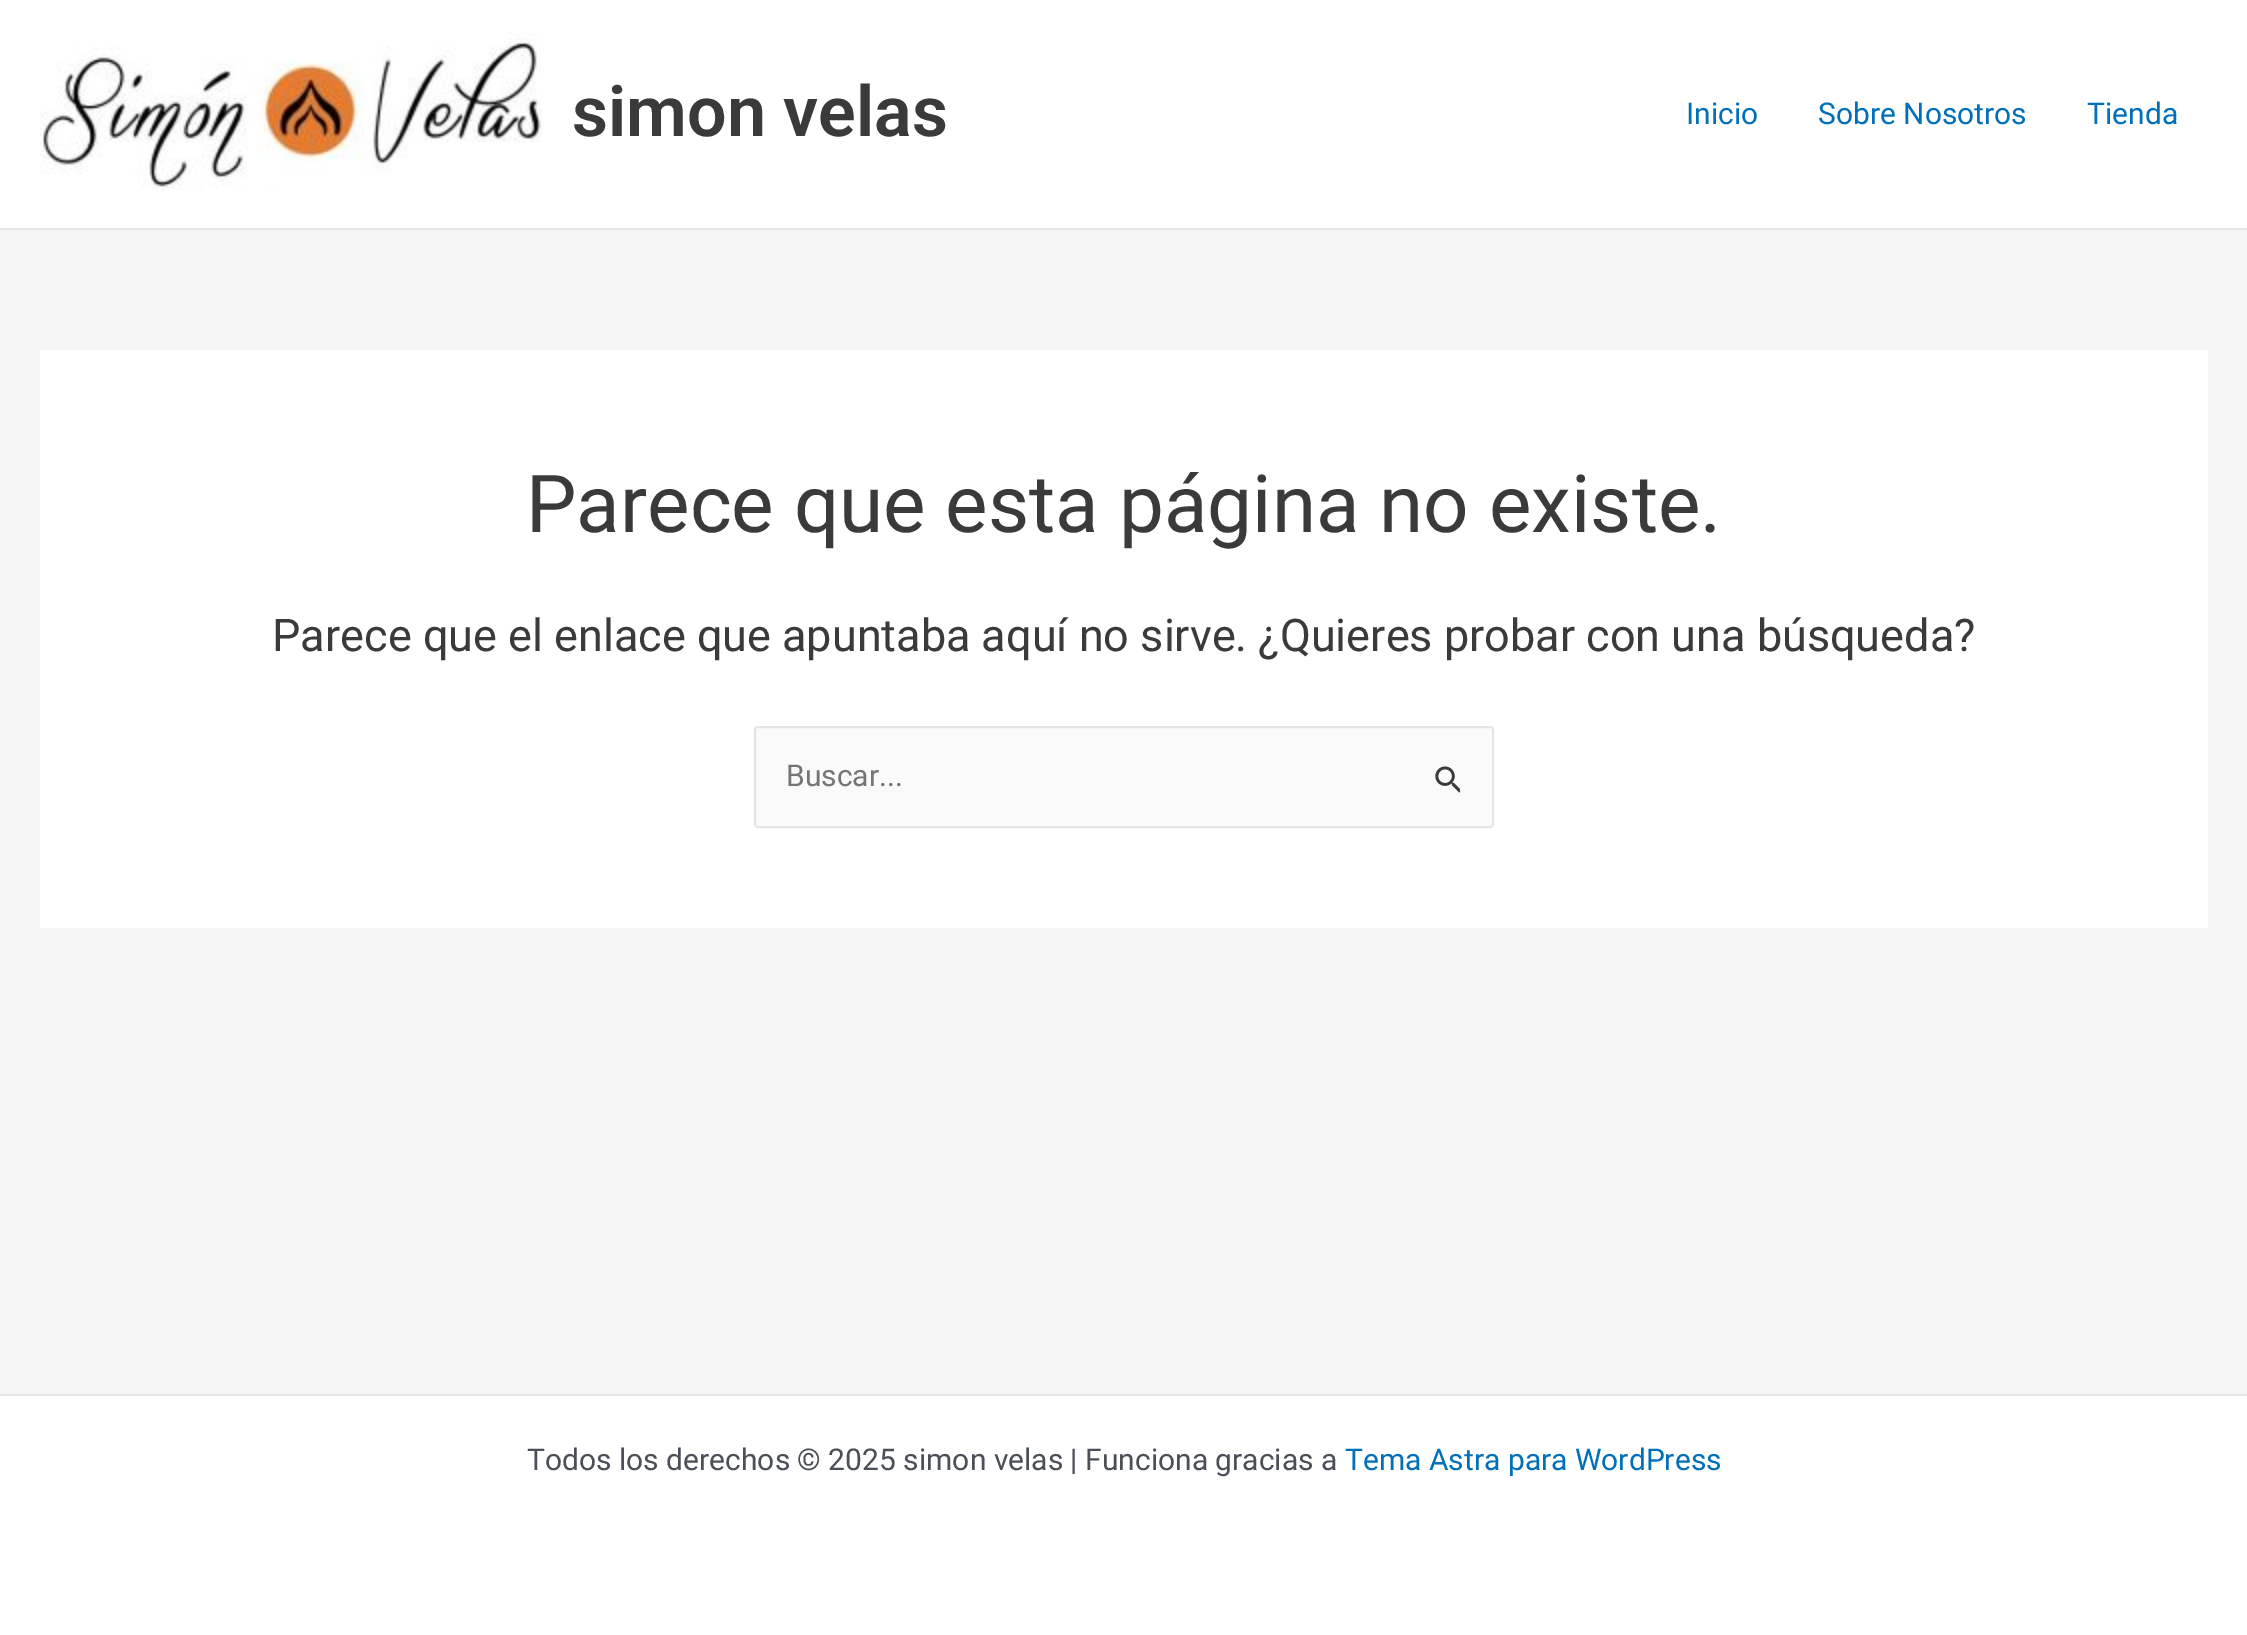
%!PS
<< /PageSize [2247 1635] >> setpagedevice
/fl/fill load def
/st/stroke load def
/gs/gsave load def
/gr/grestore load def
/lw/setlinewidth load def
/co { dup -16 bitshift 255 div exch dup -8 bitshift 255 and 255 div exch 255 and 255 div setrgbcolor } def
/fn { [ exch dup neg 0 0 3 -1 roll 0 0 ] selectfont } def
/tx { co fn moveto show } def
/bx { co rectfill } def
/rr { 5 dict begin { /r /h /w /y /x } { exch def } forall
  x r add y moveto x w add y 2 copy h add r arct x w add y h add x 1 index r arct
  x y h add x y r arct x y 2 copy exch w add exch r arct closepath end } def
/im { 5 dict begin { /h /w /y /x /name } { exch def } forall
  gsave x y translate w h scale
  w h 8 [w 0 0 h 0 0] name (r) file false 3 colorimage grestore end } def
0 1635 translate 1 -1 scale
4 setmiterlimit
0 0 2247 1635 16#F5F5F5 bx
0 0 2247 228 16#FFFFFF bx
0 228 2247 2 16#E5E5E5 bx
(media/1.raw) 40 32 502 159 im
40 350 2168 578 16#FFFFFF bx
16#FAFAFA co
755 727 738 100 3 rr gs fl gr
16#E5E5E5 co
2 lw
st
(media/2.raw) 1435 766 25 27 im
0 1396 2247 239 16#FFFFFF bx
0 1394 2247 2 16#E5E5E5 bx
(simon velas) 572 136 /Roboto-SemiBold 70 16#3A3A3A tx
(Inicio) 1686 124 /Roboto-Regular 30 16#0170B9 tx
(Sobre Nosotros) 1818 124 /Roboto-Regular 30 16#0170B9 tx
(Tienda) 2087 124 /Roboto-Regular 30 16#0170B9 tx
(Parece que esta página no existe.) 526 532 /Roboto-Regular 80 16#3A3A3A tx
(Parece que el enlace que apuntaba aquí no sirve. ¿Quieres probar con una búsqueda?) 272 651 /Roboto-Regular 45 16#3A3A3A tx
(Buscar...) 786 786 /Roboto-Regular 30 16#757575 tx
(Todos los derechos © 2025 simon velas | Funciona gracias a) 527 1470 /Roboto-Regular 30 16#4B4F58 tx
(Tema Astra para WordPress) 1345 1470 /Roboto-Regular 30 16#0170B9 tx
showpage
